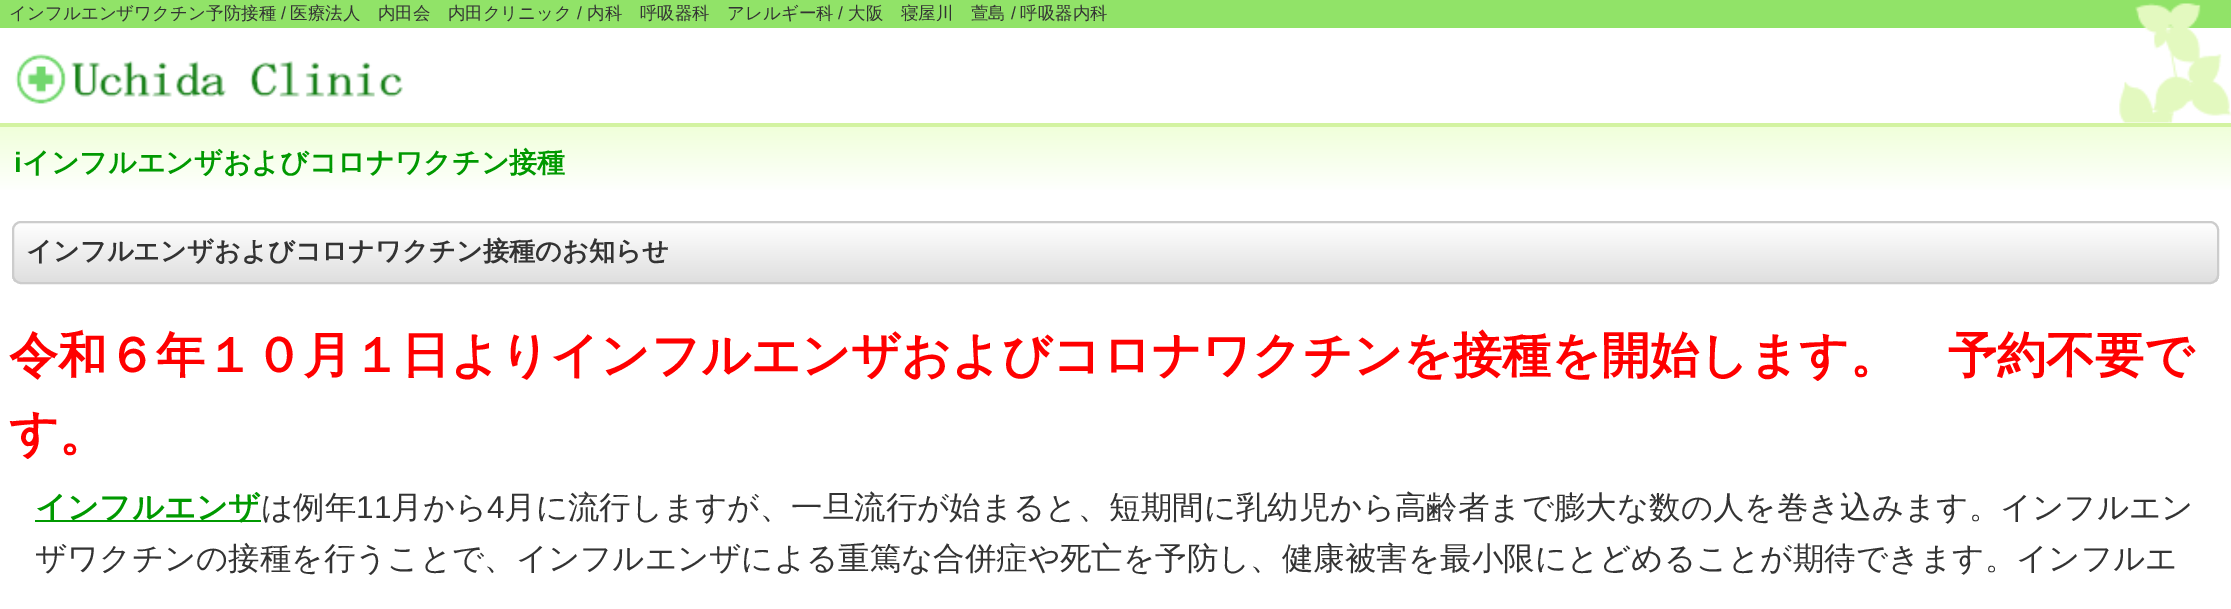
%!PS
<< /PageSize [2231 609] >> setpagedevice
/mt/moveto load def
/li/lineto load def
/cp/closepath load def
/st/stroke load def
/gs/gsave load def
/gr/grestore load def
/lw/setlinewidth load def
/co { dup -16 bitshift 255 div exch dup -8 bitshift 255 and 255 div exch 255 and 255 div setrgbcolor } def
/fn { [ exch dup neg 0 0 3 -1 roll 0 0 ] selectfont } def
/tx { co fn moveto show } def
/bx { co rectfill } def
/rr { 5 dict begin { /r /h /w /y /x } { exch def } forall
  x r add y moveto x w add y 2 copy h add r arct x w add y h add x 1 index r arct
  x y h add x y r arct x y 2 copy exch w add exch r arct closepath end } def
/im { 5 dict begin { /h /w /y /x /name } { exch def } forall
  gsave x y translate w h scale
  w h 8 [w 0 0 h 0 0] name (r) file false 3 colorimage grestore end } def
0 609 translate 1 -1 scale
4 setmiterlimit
0 0 2231 609 16#FFFFFF bx
0 0 2231 28 16#91E368 bx
(media/1.raw) 2135 3 66 25 im
(media/2.raw) 2119 28 112 95 im
(media/3.raw) 15 54 388 50 im
gs 0 127 mt 2231 127 li 2231 190 li 0 190 li cp clip newpath
<< /ShadingType 2 /ColorSpace /DeviceRGB /Coords [0 126 0 194] /Extend [true true] /Function << /FunctionType 2 /Domain [0 1] /C0 [.941 1 .851] /C1 [1 1 1] /N 1 >> >> shfill gr
0 123 2231 4 16#D3F3A1 bx
gs
12 221 2207 63 9 rr clip newpath
gs 12 222 mt 2219 222 li 2219 282 li 12 282 li cp clip newpath
<< /ShadingType 2 /ColorSpace /DeviceRGB /Coords [14 222 14 282] /Extend [true true] /Function << /FunctionType 2 /Domain [0 1] /C0 [1 1 1] /C1 [.875 .875 .875] /N 1 >> >> shfill gr
gr
16#CCCCCC co
2 lw
13 222 2205 61 8 rr st
35 520 226 2 16#009900 bx
(インフルエンザワクチン予防接種) 9 19 /WenQuanYiZenHei-Medium 17.5 16#333333 tx
(/) 281 19 /LiberationSans-Regular 17.5 16#333333 tx
(医療法人　内田会　内田クリニック) 290 19 /WenQuanYiZenHei-Medium 17.5 16#333333 tx
(/) 577 19 /LiberationSans-Regular 17.5 16#333333 tx
(内科　呼吸器科　アレルギー科) 587 19 /WenQuanYiZenHei-Medium 17.5 16#333333 tx
(/) 838 19 /LiberationSans-Regular 17.5 16#333333 tx
(大阪　寝屋川　萱島) 848 19 /WenQuanYiZenHei-Medium 17.5 16#333333 tx
(/) 1011 19 /LiberationSans-Regular 17.5 16#333333 tx
(呼吸器内科) 1020 19 /WenQuanYiZenHei-Medium 17.5 16#333333 tx
(i) 14 172 /LiberationSans-Bold 28 16#009900 tx
(インフルエンザおよびコロナワクチン接種) 22 172 /WenQuanYiZenHei-Bold 28 16#009900 tx
(インフルエンザおよびコロナワクチン接種のお知らせ) 26 260 /WenQuanYiZenHei-Bold 26.25 16#333333 tx
(令和６年１０月１日よりインフルエンザおよびコロナワクチンを接種を開始します。　予約不要で) 9 372 /WenQuanYiZenHei-Bold 49 16#FF0000 tx
(す。) 9 450 /WenQuanYiZenHei-Bold 49 16#FF0000 tx
(インフルエンザ) 35 518 /WenQuanYiZenHei-Bold 31.5 16#009900 tx
(は例年) 261 518 /WenQuanYiZenHei-Medium 31.5 16#333333 tx
(11) 356 518 /LiberationSans-Regular 31.5 16#333333 tx
(月から) 391 518 /WenQuanYiZenHei-Medium 31.5 16#333333 tx
(4) 487 518 /LiberationSans-Regular 31.5 16#333333 tx
(月に流行しますが、一旦流行が始まると、短期間に乳幼児から高齢者まで膨大な数の人を巻き込みます。インフルエン) 504 518 /WenQuanYiZenHei-Medium 31.5 16#333333 tx
(ザワクチンの接種を行うことで、インフルエンザによる重篤な合併症や死亡を予防し、健康被害を最小限にとどめることが期待できます。インフルエ) 35 569 /WenQuanYiZenHei-Medium 31.5 16#333333 tx
showpage
